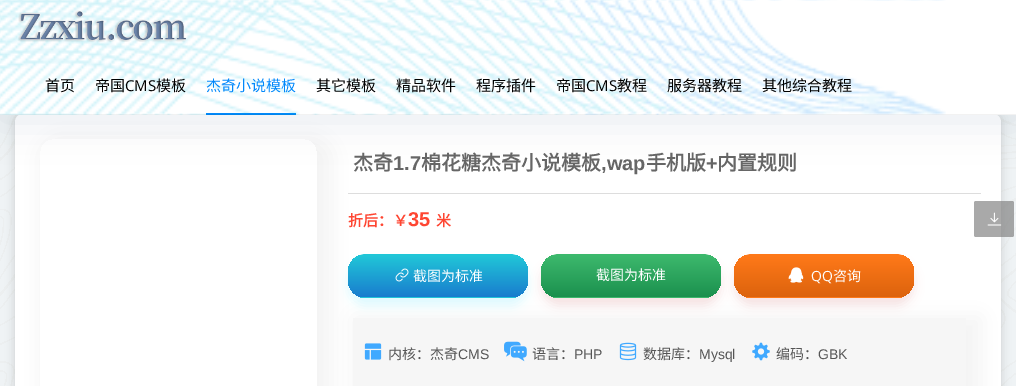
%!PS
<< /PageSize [1016 386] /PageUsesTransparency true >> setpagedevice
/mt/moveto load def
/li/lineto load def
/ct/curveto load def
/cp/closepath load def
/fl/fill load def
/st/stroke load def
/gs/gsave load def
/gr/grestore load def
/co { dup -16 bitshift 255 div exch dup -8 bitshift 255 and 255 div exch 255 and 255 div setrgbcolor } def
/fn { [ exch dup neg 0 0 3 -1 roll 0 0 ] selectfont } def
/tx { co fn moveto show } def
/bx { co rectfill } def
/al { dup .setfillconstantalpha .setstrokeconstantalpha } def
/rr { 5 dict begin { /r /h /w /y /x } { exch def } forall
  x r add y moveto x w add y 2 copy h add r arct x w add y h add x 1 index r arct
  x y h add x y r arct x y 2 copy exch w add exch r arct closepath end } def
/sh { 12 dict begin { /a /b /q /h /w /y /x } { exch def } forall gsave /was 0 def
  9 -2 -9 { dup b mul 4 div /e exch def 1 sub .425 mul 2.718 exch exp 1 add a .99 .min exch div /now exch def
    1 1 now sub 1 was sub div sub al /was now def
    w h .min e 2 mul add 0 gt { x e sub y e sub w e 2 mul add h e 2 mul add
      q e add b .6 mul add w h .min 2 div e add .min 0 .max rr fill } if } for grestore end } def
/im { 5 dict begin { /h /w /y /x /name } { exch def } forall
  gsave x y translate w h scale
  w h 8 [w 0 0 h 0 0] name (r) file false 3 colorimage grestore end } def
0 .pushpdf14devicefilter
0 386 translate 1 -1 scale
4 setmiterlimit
0 0 1016 386 16#EFF3F5 bx
(media/1.raw) 0 115 1016 271 im
16#000000 co
15 114 986 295 8 5 .15 sh
16#FFFFFF co
15 114 986 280 8 rr fl
16#113A5D co
0 5 1016 115 0 20 .1 sh
gs
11 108 mt 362 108 li 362 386 li 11 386 li cp 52 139 mt 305 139 li 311.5 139 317 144.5 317 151 ct 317 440 li 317 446.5 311.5 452 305 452 ct 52 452 li 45.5 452 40 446.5 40 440 ct 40 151 li 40 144.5 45.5 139 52 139 ct cp eoclip newpath
16#272C31 co
42 139 289 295 18 10 .06 sh
gr
0 0 1016 115 16#FFFFFF bx
206 113 90 2 16#0188FB bx
(media/2.raw) 0 0 946 115 im
0.05 al
0 114 1016 1 16#000000 bx
1 al
(media/3.raw) 18 10 168 32 im
348 193 633 1 16#DDDDDD bx
16#51E3FF co
348 262 180 44 18 5 .18 sh
gs
348 254 180 44 18 rr clip newpath
gs 348 255 mt 528 255 li 528 297 li 348 297 li cp clip newpath
<< /ShadingType 2 /ColorSpace /DeviceRGB /Coords [438 255 438 297] /Extend [true true] /Function << /FunctionType 2 /Domain [0 1] /C0 [.129 .78 .847] /C1 [.098 .486 .808] /N 1 >> >> shfill gr
gs 360 297 mt 516 297 li 516 298 li 360 298 li cp clip newpath
<< /ShadingType 2 /ColorSpace /DeviceRGB /Coords [438 297 438 339] /Extend [true true] /Function << /FunctionType 2 /Domain [0 1] /C0 [.129 .78 .847] /C1 [.098 .486 .808] /N 1 >> >> shfill gr
gr
16#20C6D7 co
353.5 259.5 mt 357 256.5 361.5 254.5 366 254.5 ct 510 254.5 li 514.5 254.5 519 256.5 522.5 259.5 ct st
(media/4.raw) 395 268 14 14 im
16#BB3039 co
541 262 180 44 18 5 .14 sh
gs
541 254 180 44 18 rr clip newpath
gs 541 255 mt 721 255 li 721 297 li 541 297 li cp clip newpath
<< /ShadingType 2 /ColorSpace /DeviceRGB /Coords [631 255 631 297] /Extend [true true] /Function << /FunctionType 2 /Domain [0 1] /C0 [.239 .725 .427] /C1 [.106 .565 .306] /N 1 >> >> shfill gr
gs 553 297 mt 709 297 li 709 298 li 553 298 li cp clip newpath
<< /ShadingType 2 /ColorSpace /DeviceRGB /Coords [631 297 631 339] /Extend [true true] /Function << /FunctionType 2 /Domain [0 1] /C0 [.239 .725 .427] /C1 [.106 .565 .306] /N 1 >> >> shfill gr
gr
16#3CB86C co
546.5 259.5 mt 550 256.5 554.5 254.5 559 254.5 ct 703 254.5 li 707.5 254.5 712 256.5 715.5 259.5 ct st
16#BB3039 co
734 262 180 44 18 5 .14 sh
gs
734 254 180 44 18 rr clip newpath
gs 734 255 mt 914 255 li 914 297 li 734 297 li cp clip newpath
<< /ShadingType 2 /ColorSpace /DeviceRGB /Coords [824 255 824 297] /Extend [true true] /Function << /FunctionType 2 /Domain [0 1] /C0 [1 .475 .098] /C1 [.863 .388 .051] /N 1 >> >> shfill gr
gs 746 297 mt 902 297 li 902 298 li 746 298 li cp clip newpath
<< /ShadingType 2 /ColorSpace /DeviceRGB /Coords [824 297 824 339] /Extend [true true] /Function << /FunctionType 2 /Domain [0 1] /C0 [1 .475 .098] /C1 [.863 .388 .051] /N 1 >> >> shfill gr
gr
16#FE7818 co
739.5 259.5 mt 743 256.5 747.5 254.5 752 254.5 ct 896 254.5 li 900.5 254.5 905 256.5 908.5 259.5 ct st
(media/5.raw) 788 267 16 16 im
16#272C31 co
355 318 625 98 0 10 .06 sh
353 318 613 68 16#F6F6F6 bx
(media/6.raw) 364 343 18 17 im
(media/7.raw) 504 341 23 21 im
(media/8.raw) 619 342 18 19 im
(media/9.raw) 752 342 18 19 im
0.68 al
16#808080 co
974 201 40 36 2 rr fl
1 al
(media/10.raw) 987 212 15 14 im
(首页) 45 91 /NotoSansCJKSC-Regular 15 16#000000 tx
(帝国) 95 91 /NotoSansCJKSC-Regular 15 16#000000 tx
(CMS) 125 91 /OpenSans-Regular 15 16#000000 tx
(模板) 156 91 /NotoSansCJKSC-Regular 15 16#000000 tx
(杰奇小说模板) 206 91 /NotoSansCJKSC-Regular 15 16#0188FB tx
(其它模板) 316 91 /NotoSansCJKSC-Regular 15 16#000000 tx
(精品软件) 396 91 /NotoSansCJKSC-Regular 15 16#000000 tx
(程序插件) 476 91 /NotoSansCJKSC-Regular 15 16#000000 tx
(帝国) 556 91 /NotoSansCJKSC-Regular 15 16#000000 tx
(CMS) 586 91 /OpenSans-Regular 15 16#000000 tx
(教程) 617 91 /NotoSansCJKSC-Regular 15 16#000000 tx
(服务器教程) 667 91 /NotoSansCJKSC-Regular 15 16#000000 tx
(其他综合教程) 762 91 /NotoSansCJKSC-Regular 15 16#000000 tx
(杰奇) 353 170 /NotoSansCJKSC-Bold 20 16#666666 tx
(1.7) 393 170 /LiberationSans-Bold 20 16#666666 tx
(棉花糖杰奇小说模板) 421 170 /NotoSansCJKSC-Bold 20 16#666666 tx
(,wap) 601 170 /LiberationSans-Bold 20 16#666666 tx
(手机版) 646 170 /NotoSansCJKSC-Bold 20 16#666666 tx
(+) 706 170 /LiberationSans-Bold 20 16#666666 tx
(内置规则) 717 170 /NotoSansCJKSC-Bold 20 16#666666 tx
(折后：￥) 348 226 /NotoSansCJKSC-Bold 15 16#FE4632 tx
(35) 408 226 /LiberationSans-Bold 20 16#FE4632 tx
(米) 436 226 /NotoSansCJKSC-Bold 15 16#FE4632 tx
(截图为标准) 413 281 /NotoSansCJKSC-Regular 14 16#FFFFFF tx
(截图为标准) 596 280 /NotoSansCJKSC-Regular 14 16#FFFFFF tx
(QQ) 811 281 /OpenSans-Regular 14 16#FFFFFF tx
(咨询) 833 281 /NotoSansCJKSC-Regular 14 16#FFFFFF tx
(内核：杰奇) 388 359 /NotoSansCJKSC-Regular 14 16#555555 tx
(CMS) 458 359 /LiberationSans-Regular 14 16#555555 tx
(语言：) 532 359 /NotoSansCJKSC-Regular 14 16#555555 tx
(PHP) 574 359 /LiberationSans-Regular 14 16#555555 tx
(数据库：) 643 359 /NotoSansCJKSC-Regular 14 16#555555 tx
(Mysql) 699 359 /LiberationSans-Regular 14 16#555555 tx
(编码：) 776 359 /NotoSansCJKSC-Regular 14 16#555555 tx
(GBK) 818 359 /LiberationSans-Regular 14 16#555555 tx
.poppdf14devicefilter showpage
